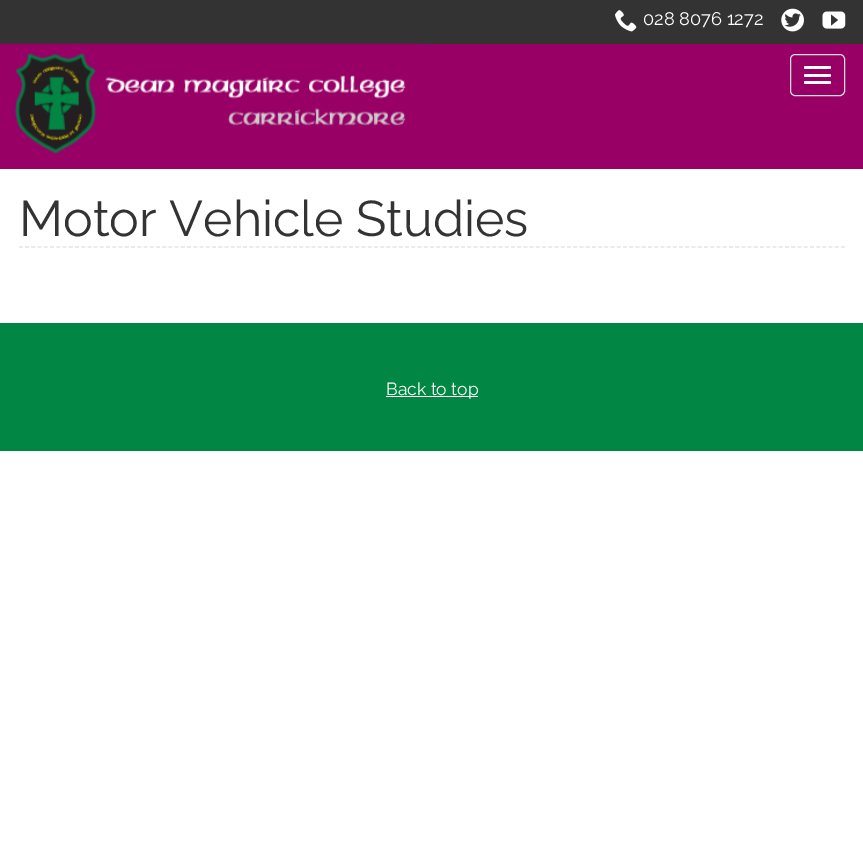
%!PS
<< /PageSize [863 862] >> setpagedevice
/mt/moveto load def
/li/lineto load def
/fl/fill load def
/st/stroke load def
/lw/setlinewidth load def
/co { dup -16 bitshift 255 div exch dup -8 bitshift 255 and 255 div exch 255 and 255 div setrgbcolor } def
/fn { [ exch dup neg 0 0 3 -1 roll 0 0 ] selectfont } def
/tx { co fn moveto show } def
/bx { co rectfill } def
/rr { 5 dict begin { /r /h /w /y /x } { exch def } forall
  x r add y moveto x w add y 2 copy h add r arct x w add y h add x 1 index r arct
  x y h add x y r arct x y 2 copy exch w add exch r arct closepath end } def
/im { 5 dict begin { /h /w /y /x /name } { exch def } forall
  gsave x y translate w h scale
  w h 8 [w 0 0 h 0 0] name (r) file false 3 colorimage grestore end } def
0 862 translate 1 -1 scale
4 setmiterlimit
0 0 863 862 16#FFFFFF bx
0 0 863 44 16#333333 bx
(media/1.raw) 615 10 22 22 im
(media/2.raw) 781 8 23 24 im
(media/3.raw) 822 11 24 18 im
0 44 863 125 16#990066 bx
(media/4.raw) 0 43 423 111 im
16#DDDDDD co
790.5 54.5 54 41 4.5 rr st
16#FFFFFF co
804 66 27 3 1.5 rr fl
804 74 27 3 1.5 rr fl
804 81 27 3 1.5 rr fl
16#E4E4E4 co
1.2 lw
[3.75 2.48] 0 setdash
19 247 mt 845 247 li st
0 323 863 128 16#018644 bx
386 396 92 1 16#FFFFFF bx
(028 8076 1272) 643 25 /Raleway-Thin 18.25 16#FFFFFF tx
(Motor Vehicle Studies) 19 236 /Raleway-Thin 50 16#333333 tx
(Back to top) 386 395 /Raleway-Thin 17.5 16#FFFFFF tx
showpage
